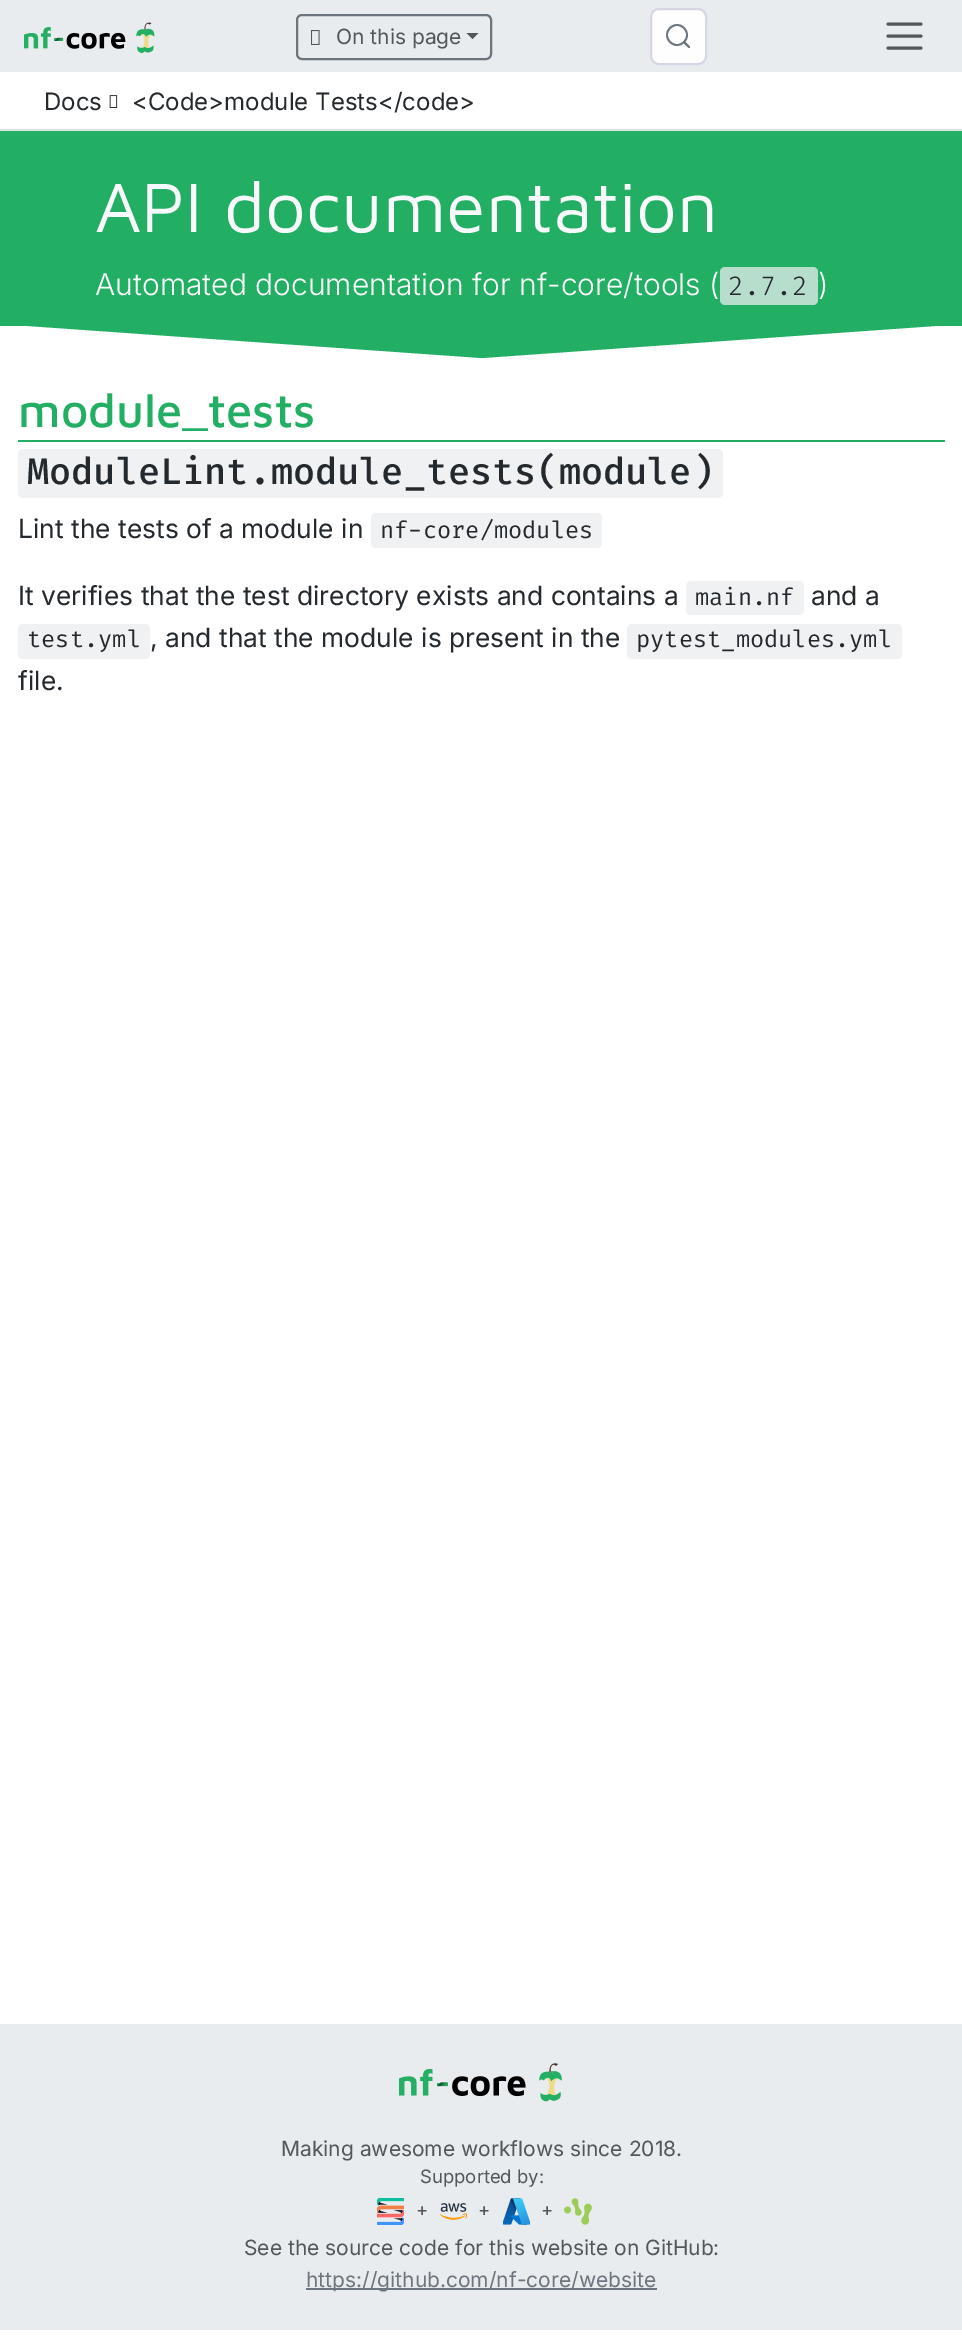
%!PS
<< /PageSize [962 2335] >> setpagedevice
/mt/moveto load def
/li/lineto load def
/cp/closepath load def
/fl/fill load def
/st/stroke load def
/gs/gsave load def
/gr/grestore load def
/lw/setlinewidth load def
/co { dup -16 bitshift 255 div exch dup -8 bitshift 255 and 255 div exch 255 and 255 div setrgbcolor } def
/fn { [ exch dup neg 0 0 3 -1 roll 0 0 ] selectfont } def
/tx { co fn moveto show } def
/bx { co rectfill } def
/ci { newpath 0 360 arc closepath } def
/rr { 5 dict begin { /r /h /w /y /x } { exch def } forall
  x r add y moveto x w add y 2 copy h add r arct x w add y h add x 1 index r arct
  x y h add x y r arct x y 2 copy exch w add exch r arct closepath end } def
/im { 5 dict begin { /h /w /y /x /name } { exch def } forall
  gsave x y translate w h scale
  w h 8 [w 0 0 h 0 0] name (r) file false 3 colorimage grestore end } def
0 2335 translate 1 -1 scale
4 setmiterlimit
0 0 962 2335 16#FFFFFF bx
0 0 962 72 16#E9ECEF bx
(media/1.raw) 24 22 131 31 im
16#6C757D co
2 lw
297 15 194 44 5 rr st
(media/2.raw) 311 30 9 15 im
16#53575B co
466.5 33 mt 478.5 33 li 472.5 39 li cp fl
16#FEFEFE co
651 9 55 55 8 rr gs fl gr
16#D6D6E7 co
st
16#6C757D co
1.8 lw
677 35 10 ci st
2 lw
1 setlinecap
1 setlinejoin
689 47 mt 684 42 li st
16#53575B co
3 lw
0 setlinejoin
888 24 mt 921 24 li 888 36 mt 921 36 li 888 48 mt 921 48 li st
0 129 962 2 16#DEE2E6 bx
(media/3.raw) 109 95 9 13 im
16#22AE63 co
0 323 mt 0 324 li 482 358 li 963 324 li 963 323 li cp fl
0 131 962 195 16#22AE63 bx
16#B7DDCC co
720 267 98 38 5 rr fl
18 440 927 2 16#22AE63 bx
16#EFF1F3 co
18 449 705 49 5 rr fl
371 513 231 35 5 rr fl
686 581 118 34 5 rr fl
18 624 132 35 5 rr fl
627 624 275 35 5 rr fl
0 2024 962 306 16#E9ECEF bx
(media/4.raw) 399 2063 163 39 im
(media/5.raw) 377 2198 27 27 im
(media/6.raw) 440 2203 27 17 im
(media/7.raw) 503 2198 27 27 im
(media/8.raw) 564 2198 28 27 im
306 2288 351 2 16#6C757D bx
(On this page) 336 44 /Inter-Regular 21 16#53575B tx
(Docs) 44 110 /Inter-Regular 24 16#24292E tx
(<Code>module Tests</code>) 132 110 /Inter-Regular 24 16#24292E tx
(API documentation) 95 232 /MavenPro-Regular 72 16#F8F9FA tx
(Automated documentation for nf-core/tools \() 95 295 /Inter-Light 30 16#FFFFFF tx
(2.7.2) 728 295 /FiraCode-Light 26 16#24292E tx
(\)) 818 295 /Inter-Light 30 16#FFFFFF tx
(module_tests) 18 427 /MavenPro-Medium 47.5 16#22AE63 tx
(ModuleLint.module_tests\(module\)) 27 484 /FiraCode-Medium 36 16#24292E tx
(Lint the tests of a module in) 18 538 /Inter-Regular 26.4 16#24292E tx
(nf-core/modules) 380 538 /FiraCode-Regular 23.1 16#24292E tx
(It verifies that the test directory exists and contains a) 18 605 /Inter-Regular 26.4 16#24292E tx
(main.nf) 695 605 /FiraCode-Regular 23.1 16#24292E tx
(and a) 811 605 /Inter-Regular 26.4 16#24292E tx
(test.yml) 27 647 /FiraCode-Regular 23.1 16#24292E tx
(, and that the module is present in the) 150 647 /Inter-Regular 26.4 16#24292E tx
(pytest_modules.yml) 636 647 /FiraCode-Regular 23.1 16#24292E tx
(file.) 18 690 /Inter-Regular 26.4 16#24292E tx
(Making awesome workflows since 2018.) 281 2156 /Inter-Regular 21 16#53575B tx
(Supported by:) 420 2183 /Inter-Regular 18.5 16#53575B tx
(+) 416 2216 /Inter-Regular 18.5 16#53575B tx
(+) 478 2216 /Inter-Regular 18.5 16#53575B tx
(+) 541 2216 /Inter-Regular 18.5 16#53575B tx
(See the source code for this website on GitHub:) 244 2255 /Inter-Regular 21 16#53575B tx
(https://github.com/nf-core/website) 306 2287 /Inter-Regular 21 16#6C757D tx
showpage
